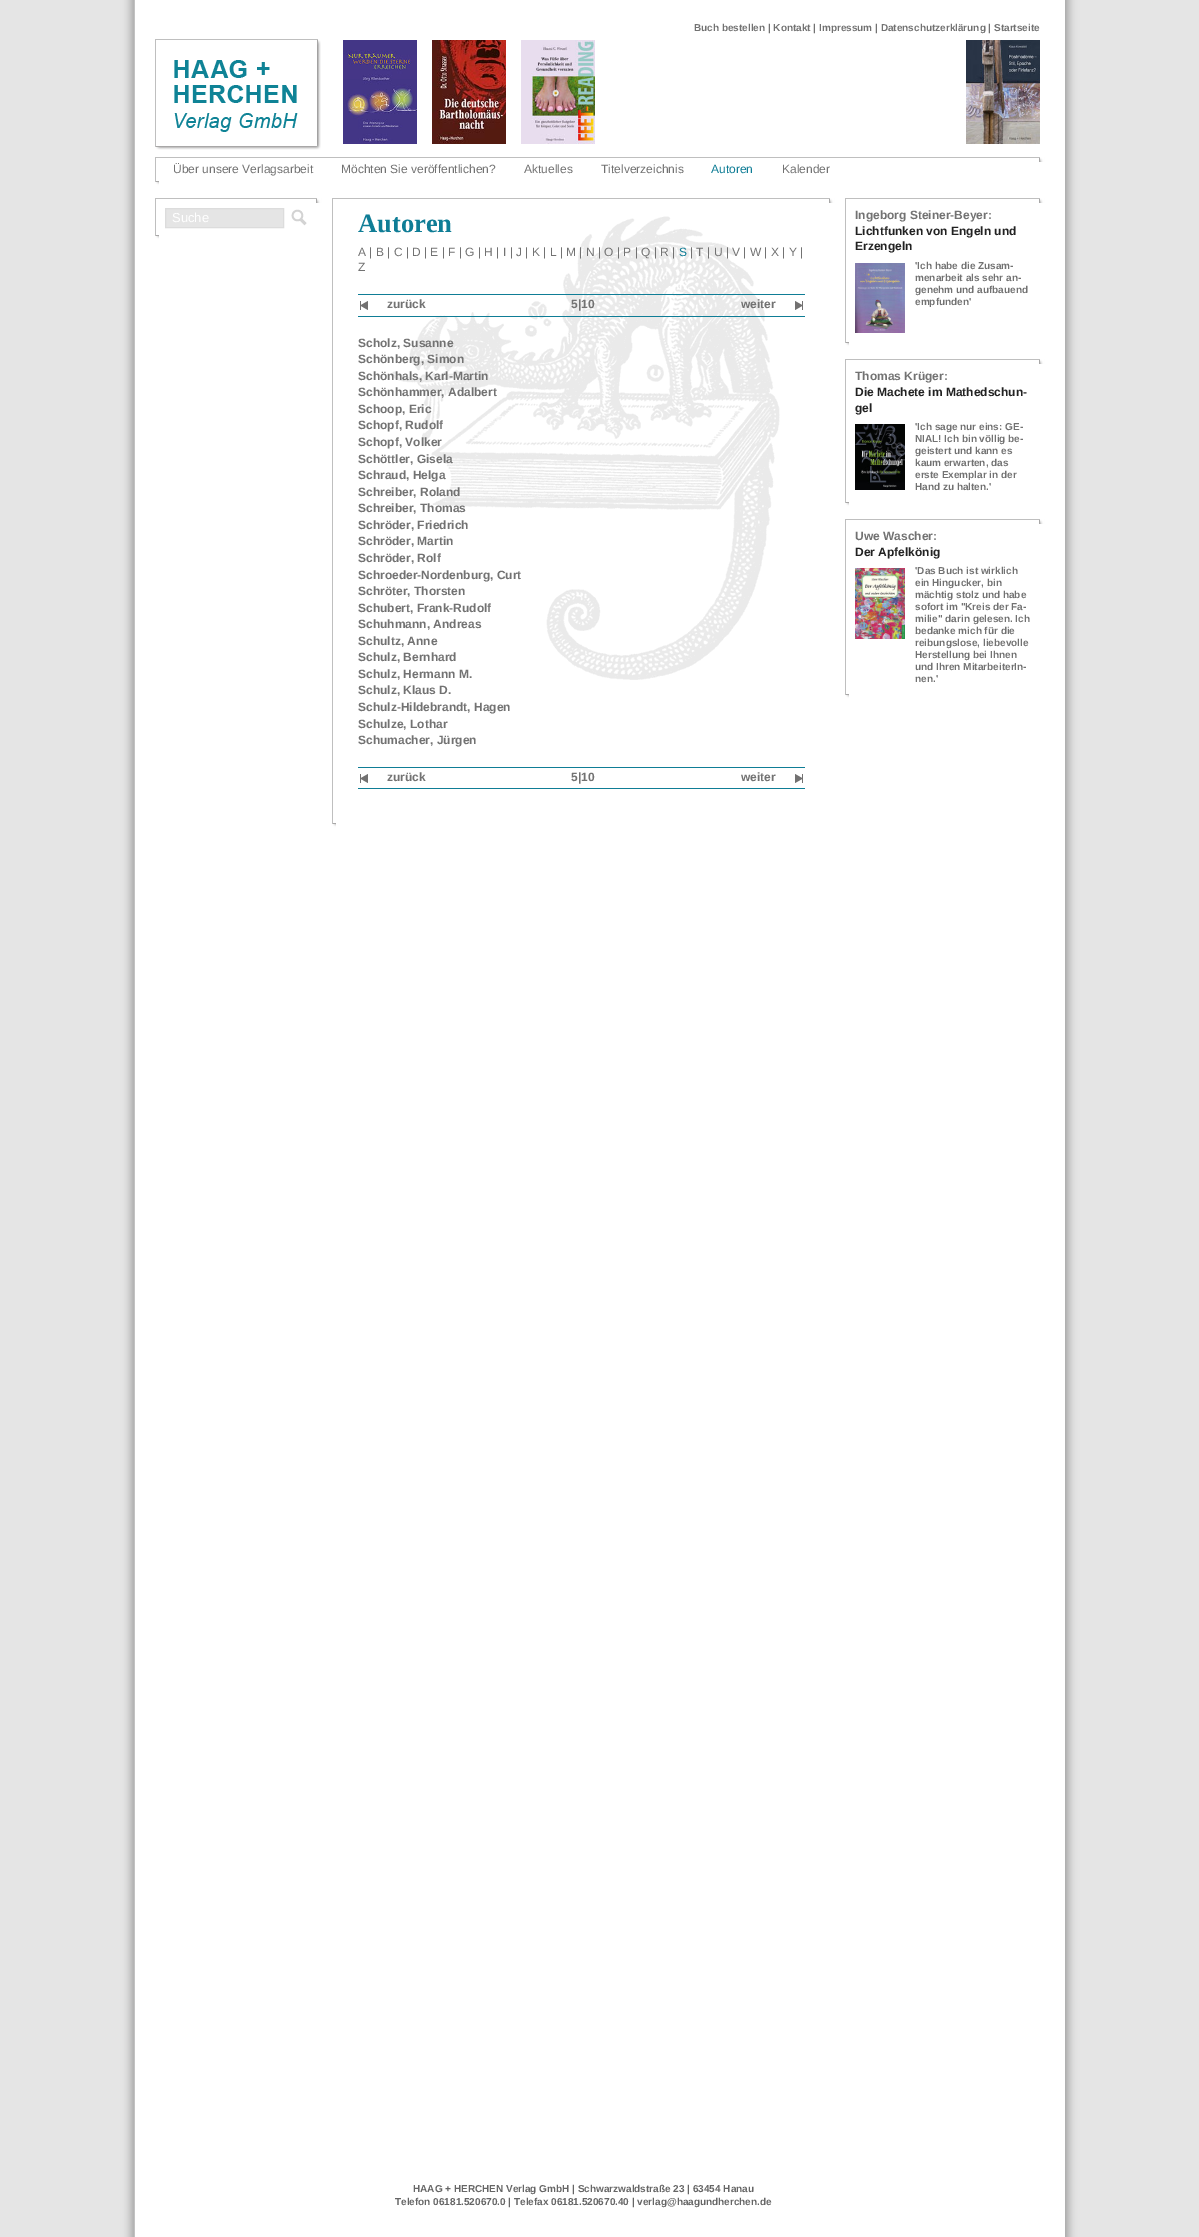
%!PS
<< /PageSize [1199 2237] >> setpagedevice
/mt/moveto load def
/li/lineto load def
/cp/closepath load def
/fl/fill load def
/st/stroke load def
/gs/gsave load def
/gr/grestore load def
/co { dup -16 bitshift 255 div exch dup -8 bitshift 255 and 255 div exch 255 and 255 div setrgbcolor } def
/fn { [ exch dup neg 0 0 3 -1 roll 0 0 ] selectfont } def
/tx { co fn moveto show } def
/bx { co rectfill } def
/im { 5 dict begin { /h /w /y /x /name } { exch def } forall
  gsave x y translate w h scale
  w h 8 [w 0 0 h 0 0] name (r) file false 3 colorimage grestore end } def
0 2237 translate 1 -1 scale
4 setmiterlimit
0 0 1199 2237 16#E5E5E5 bx
(media/1.raw) 120 0 960 2237 im
(media/2.raw) 155 39 166 111 im
(media/3.raw) 343 40 74 104 im
(media/4.raw) 432 40 74 104 im
(media/5.raw) 521 40 74 104 im
(media/6.raw) 966 40 74 104 im
155 157 890 1 16#BFBFBF bx
155 157 1 29 16#BFBFBF bx
(media/7.raw) 1039 157 6 5 im
(media/8.raw) 155 181 4 5 im
155 198 167 1 16#BFBFBF bx
155 198 1 42 16#BFBFBF bx
(media/7.raw) 316 198 6 5 im
16#E5E5E5 co
165.5 208.5 mt 283.5 208.5 li 283.5 227.5 li 165.5 227.5 li cp gs fl gr
16#DCDCDC co
st
(media/9.raw) 291 209 16 17 im
(media/8.raw) 155 235 4 5 im
332 198 503 1 16#BFBFBF bx
332 198 1 630 16#BFBFBF bx
(media/7.raw) 829 198 6 5 im
(media/10.raw) 392 216 388 464 im
358 294 447 1 16#0F7D96 bx
358 316 447 1 16#0F7D96 bx
(media/11.raw) 360 301 8 9 im
(media/12.raw) 795 301 8 9 im
358 767 447 1 16#0F7D96 bx
358 788 447 1 16#0F7D96 bx
(media/11.raw) 360 774 8 9 im
(media/12.raw) 795 774 8 9 im
(media/8.raw) 332 823 4 5 im
845 198 200 1 16#BFBFBF bx
845 198 1 149 16#BFBFBF bx
(media/7.raw) 1039 198 6 5 im
(media/13.raw) 855 263 50 70 im
(media/8.raw) 845 342 4 5 im
845 359 200 1 16#BFBFBF bx
845 359 1 148 16#BFBFBF bx
(media/7.raw) 1039 359 6 5 im
(media/14.raw) 855 424 50 66 im
(media/8.raw) 845 502 4 5 im
845 519 200 1 16#BFBFBF bx
845 519 1 180 16#BFBFBF bx
(media/7.raw) 1039 519 6 5 im
(media/15.raw) 855 568 50 71 im
(media/8.raw) 845 694 4 5 im
(Buch bestellen | Kontakt | Impressum | Datenschutzerklärung | Startseite) 694 31 /LiberationSans-Bold 10 16#727272 tx
(Über unsere Verlagsarbeit) 173 173 /LiberationSans-Regular 12 16#727272 tx
(Möchten Sie veröffentlichen?) 341 173 /LiberationSans-Regular 12 16#727272 tx
(Aktuelles) 524 173 /LiberationSans-Regular 12 16#727272 tx
(Titelverzeichnis) 601 173 /LiberationSans-Regular 12 16#727272 tx
(Autoren) 711 173 /LiberationSans-Regular 12 16#0F7D96 tx
(Kalender) 782 173 /LiberationSans-Regular 12 16#727272 tx
(Suche) 172 222 /LiberationSans-Regular 13 16#FFFFFF tx
(Autoren) 358 232 /LiberationSerif-Bold 26.5 16#0F7D96 tx
(A | B | C | D | E | F | G | H | I | J | K | L | M | N | O | P | Q | R |) 358 256 /LiberationSans-Regular 12 16#727272 tx
(S) 679 256 /LiberationSans-Regular 12 16#0F7D96 tx
(| T | U | V | W | X | Y |) 690 256 /LiberationSans-Regular 12 16#727272 tx
(Z) 358 271 /LiberationSans-Regular 12 16#727272 tx
(zurück) 387 308 /LiberationSans-Bold 12 16#727272 tx
(5|10) 571 308 /LiberationSans-Bold 12 16#727272 tx
(weiter) 741 308 /LiberationSans-Bold 12 16#727272 tx
(Scholz, Susanne) 358 347 /LiberationSans-Bold 12 16#727272 tx
(Schönberg, Simon) 358 363 /LiberationSans-Bold 12 16#727272 tx
(Schönhals, Karl-Martin) 358 380 /LiberationSans-Bold 12 16#727272 tx
(Schönhammer, Adalbert) 358 396 /LiberationSans-Bold 12 16#727272 tx
(Schoop, Eric) 358 413 /LiberationSans-Bold 12 16#727272 tx
(Schopf, Rudolf) 358 429 /LiberationSans-Bold 12 16#727272 tx
(Schopf, Volker) 358 446 /LiberationSans-Bold 12 16#727272 tx
(Schöttler, Gisela) 358 463 /LiberationSans-Bold 12 16#727272 tx
(Schraud, Helga) 358 479 /LiberationSans-Bold 12 16#727272 tx
(Schreiber, Roland) 358 496 /LiberationSans-Bold 12 16#727272 tx
(Schreiber, Thomas) 358 512 /LiberationSans-Bold 12 16#727272 tx
(Schröder, Friedrich) 358 529 /LiberationSans-Bold 12 16#727272 tx
(Schröder, Martin) 358 545 /LiberationSans-Bold 12 16#727272 tx
(Schröder, Rolf) 358 562 /LiberationSans-Bold 12 16#727272 tx
(Schroeder-Nordenburg, Curt) 358 579 /LiberationSans-Bold 12 16#727272 tx
(Schröter, Thorsten) 358 595 /LiberationSans-Bold 12 16#727272 tx
(Schubert, Frank-Rudolf) 358 612 /LiberationSans-Bold 12 16#727272 tx
(Schuhmann, Andreas) 358 628 /LiberationSans-Bold 12 16#727272 tx
(Schultz, Anne) 358 645 /LiberationSans-Bold 12 16#727272 tx
(Schulz, Bernhard) 358 661 /LiberationSans-Bold 12 16#727272 tx
(Schulz, Hermann M.) 358 678 /LiberationSans-Bold 12 16#727272 tx
(Schulz, Klaus D.) 358 694 /LiberationSans-Bold 12 16#727272 tx
(Schulz-Hildebrandt, Hagen) 358 711 /LiberationSans-Bold 12 16#727272 tx
(Schulze, Lothar) 358 728 /LiberationSans-Bold 12 16#727272 tx
(Schumacher, Jürgen) 358 744 /LiberationSans-Bold 12 16#727272 tx
(zurück) 387 781 /LiberationSans-Bold 12 16#727272 tx
(5|10) 571 781 /LiberationSans-Bold 12 16#727272 tx
(weiter) 741 781 /LiberationSans-Bold 12 16#727272 tx
(Ingeborg Steiner-Beyer:) 855 219 /LiberationSans-Bold 12 16#727272 tx
(Lichtfunken von Engeln und) 855 235 /LiberationSans-Bold 12 16#222222 tx
(Erzengeln) 855 250 /LiberationSans-Bold 12 16#222222 tx
('Ich habe die Zusam-) 915 269 /LiberationSans-Bold 10 16#727272 tx
(menarbeit als sehr an-) 915 281 /LiberationSans-Bold 10 16#727272 tx
(genehm und aufbauend) 915 293 /LiberationSans-Bold 10 16#727272 tx
(empfunden') 915 305 /LiberationSans-Bold 10 16#727272 tx
(Thomas Krüger:) 855 380 /LiberationSans-Bold 12 16#727272 tx
(Die Machete im Mathedschun-) 855 396 /LiberationSans-Bold 12 16#222222 tx
(gel) 855 412 /LiberationSans-Bold 12 16#222222 tx
('Ich sage nur eins: GE-) 915 430 /LiberationSans-Bold 10 16#727272 tx
(NIAL! Ich bin völlig be-) 915 442 /LiberationSans-Bold 10 16#727272 tx
(geistert und kann es) 915 454 /LiberationSans-Bold 10 16#727272 tx
(kaum erwarten, das) 915 466 /LiberationSans-Bold 10 16#727272 tx
(erste Exemplar in der) 915 478 /LiberationSans-Bold 10 16#727272 tx
(Hand zu halten.') 915 490 /LiberationSans-Bold 10 16#727272 tx
(Uwe Wascher:) 855 540 /LiberationSans-Bold 12 16#727272 tx
(Der Apfelkönig) 855 556 /LiberationSans-Bold 12 16#222222 tx
('Das Buch ist wirklich) 915 574 /LiberationSans-Bold 10 16#727272 tx
(ein Hingucker, bin) 915 586 /LiberationSans-Bold 10 16#727272 tx
(mächtig stolz und habe) 915 598 /LiberationSans-Bold 10 16#727272 tx
(sofort im "Kreis der Fa-) 915 610 /LiberationSans-Bold 10 16#727272 tx
(milie" darin gelesen. Ich) 915 622 /LiberationSans-Bold 10 16#727272 tx
(bedanke mich für die) 915 634 /LiberationSans-Bold 10 16#727272 tx
(reibungslose, liebevolle) 915 646 /LiberationSans-Bold 10 16#727272 tx
(Herstellung bei Ihnen) 915 658 /LiberationSans-Bold 10 16#727272 tx
(und Ihren MitarbeiterIn-) 915 670 /LiberationSans-Bold 10 16#727272 tx
(nen.') 915 682 /LiberationSans-Bold 10 16#727272 tx
(HAAG + HERCHEN Verlag GmbH | Schwarzwaldstraße 23 | 63454 Hanau) 413 2192 /LiberationSans-Bold 10 16#666666 tx
(Telefon 06181.520670.0 | Telefax 06181.520670.40 | verlag@haagundherchen.de) 395 2205 /LiberationSans-Bold 10 16#666666 tx
showpage
